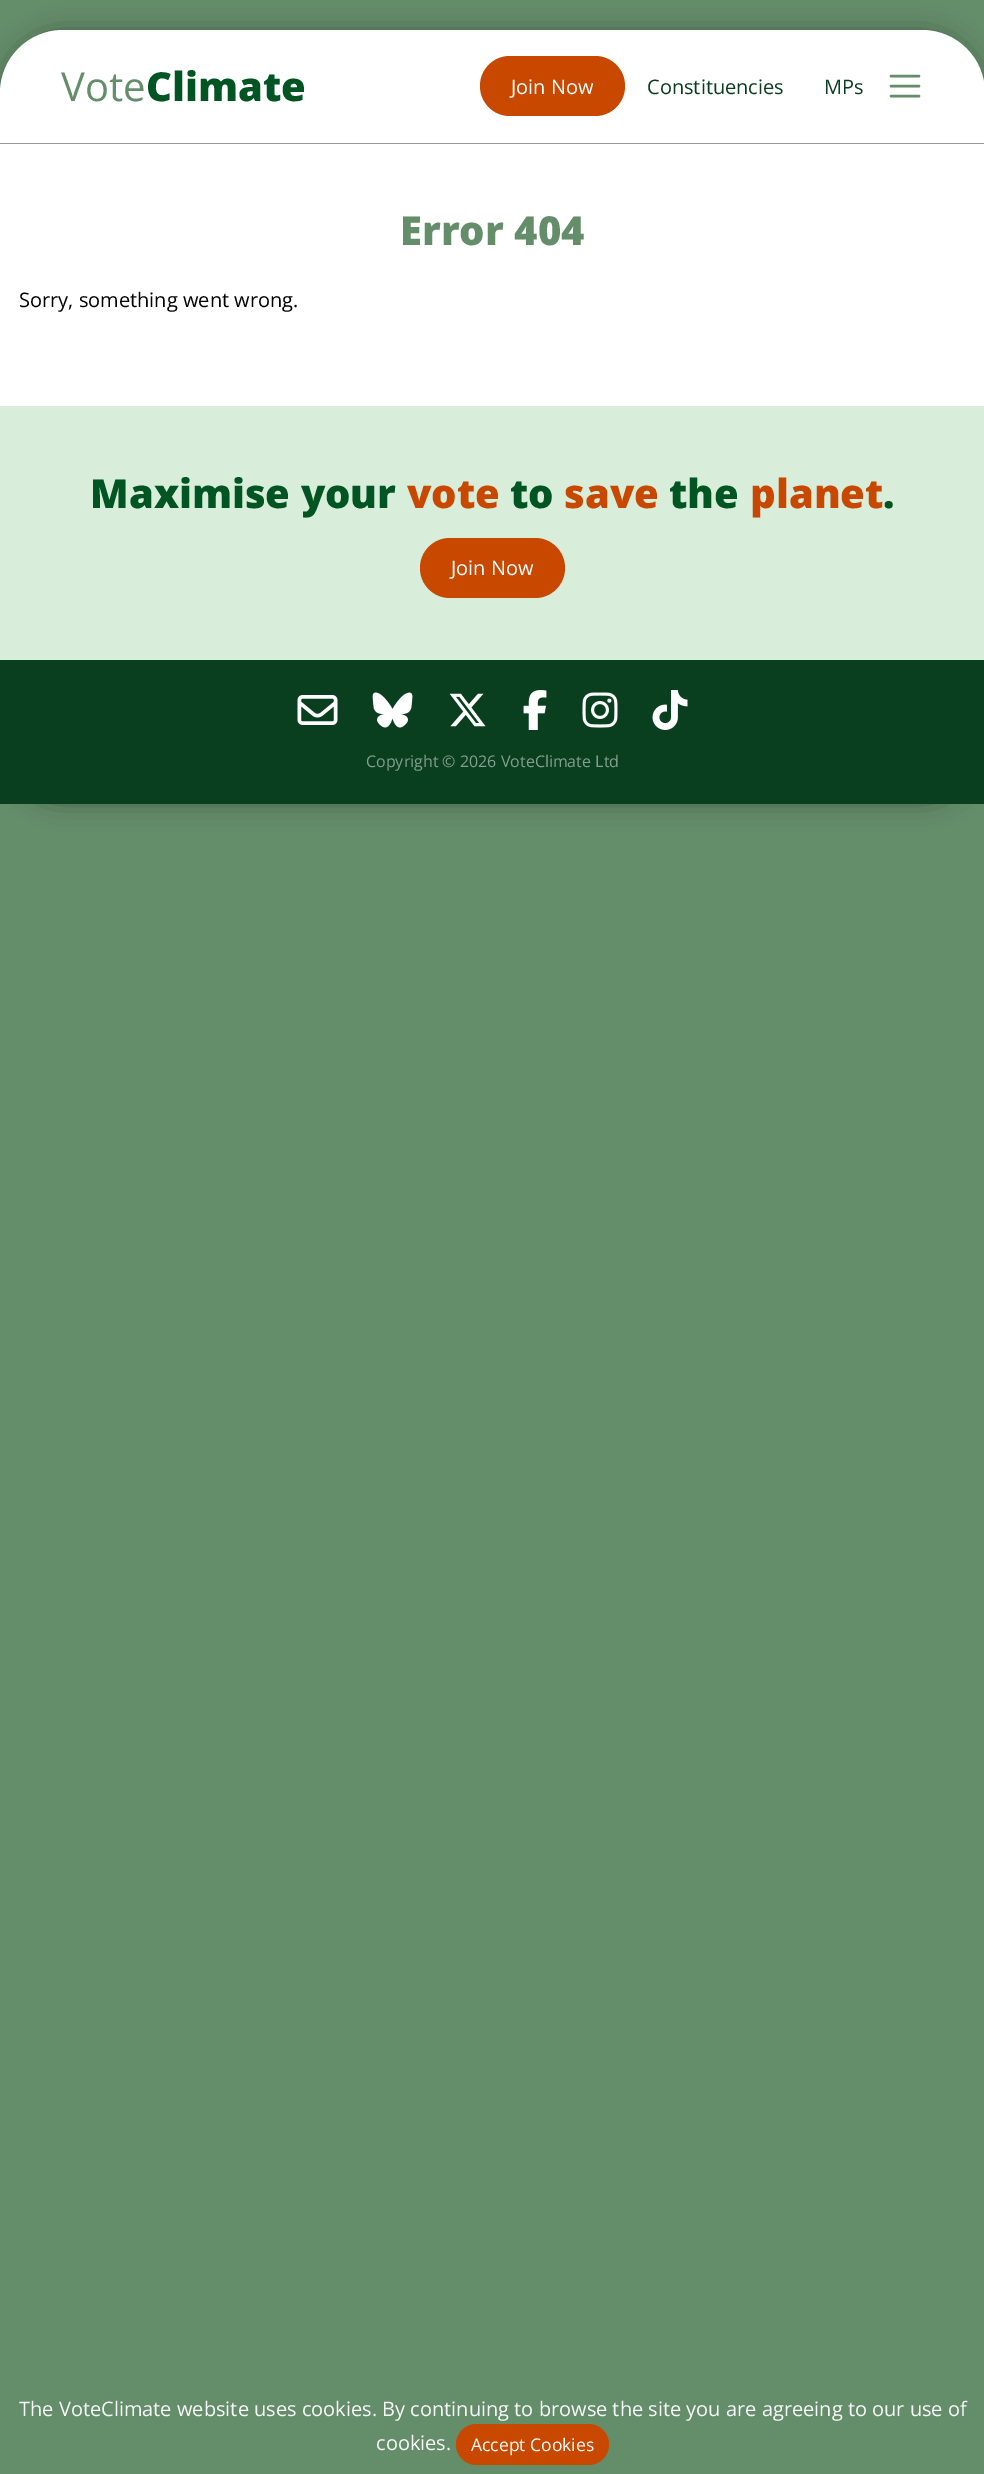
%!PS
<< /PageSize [984 2474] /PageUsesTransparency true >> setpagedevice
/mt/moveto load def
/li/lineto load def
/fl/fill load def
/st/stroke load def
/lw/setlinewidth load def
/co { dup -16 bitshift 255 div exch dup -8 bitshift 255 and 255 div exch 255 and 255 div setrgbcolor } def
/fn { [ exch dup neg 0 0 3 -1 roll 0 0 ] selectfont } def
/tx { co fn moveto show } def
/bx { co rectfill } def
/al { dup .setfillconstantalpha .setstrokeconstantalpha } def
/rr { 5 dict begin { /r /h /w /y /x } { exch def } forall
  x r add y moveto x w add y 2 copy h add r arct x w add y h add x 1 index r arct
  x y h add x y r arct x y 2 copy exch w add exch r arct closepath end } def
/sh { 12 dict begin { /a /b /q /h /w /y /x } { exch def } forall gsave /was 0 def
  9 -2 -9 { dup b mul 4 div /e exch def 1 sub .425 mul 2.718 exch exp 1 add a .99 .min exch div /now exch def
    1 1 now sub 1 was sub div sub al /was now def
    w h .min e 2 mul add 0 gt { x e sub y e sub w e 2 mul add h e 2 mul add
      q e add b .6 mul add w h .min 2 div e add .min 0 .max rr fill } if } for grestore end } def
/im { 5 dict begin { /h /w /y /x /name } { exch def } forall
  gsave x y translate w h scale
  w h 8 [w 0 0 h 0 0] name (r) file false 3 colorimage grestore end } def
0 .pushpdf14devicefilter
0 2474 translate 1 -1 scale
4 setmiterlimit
0 0 984 2474 16#648D6A bx
16#000000 co
0 30 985 774 63 12.5 .3 sh
16#FFFFFF co
0 30 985 774 63 rr fl
0 143 984 1 16#999999 bx
16#C84800 co
480 56 145 60 30 rr fl
16#648D6A co
2.5 lw
1 setlinecap
891 76 mt 919 76 li 891 86 mt 919 86 li 891 96 mt 919 96 li st
0 406 984 254 16#D8EEDB bx
16#C84800 co
420 538 145 60 30 rr fl
0 660 984 144 16#093E1E bx
(media/1.raw) 297 695 41 30 im
(media/2.raw) 372 692 41 36 im
(media/3.raw) 449 693 37 34 im
(media/4.raw) 523 690 24 40 im
(media/5.raw) 582 692 36 36 im
(media/6.raw) 652 690 36 40 im
16#C84800 co
456 2424 153 41 20.5 rr fl
(Vote) 61 101 /OpenSans-Regular 40 16#648D6A tx
(Climate) 146 101 /OpenSans-ExtraBold 40 16#015522 tx
(Join Now) 511 94 /OpenSans-Regular 20 16#FFFFFF tx
(Constituencies) 647 94 /OpenSans-Regular 20 16#093E1E tx
(MPs) 824 94 /OpenSans-Regular 20 16#093E1E tx
(Error 404) 400 245 /OpenSans-ExtraBold 40 16#648D6A tx
(Sorry, something went wrong.) 19 307 /OpenSans-Regular 20 16#000000 tx
(Maximise your) 90 508 /OpenSans-ExtraBold 40 16#015522 tx
(vote) 407 508 /OpenSans-ExtraBold 40 16#C84800 tx
(to) 510 508 /OpenSans-ExtraBold 40 16#015522 tx
(save) 564 508 /OpenSans-ExtraBold 40 16#C84800 tx
(the) 669 508 /OpenSans-ExtraBold 40 16#015522 tx
(planet) 750 508 /OpenSans-ExtraBold 40 16#C84800 tx
(.) 883 508 /OpenSans-ExtraBold 40 16#015522 tx
(Join Now) 451 575 /OpenSans-Regular 20 16#FFFFFF tx
(Copyright © 2026 VoteClimate Ltd) 366 767 /OpenSans-Regular 16 16#849F8F tx
(The VoteClimate website uses cookies. By continuing to browse the site you are agreeing to our use of) 19 2416 /OpenSans-Regular 20 16#F8F9FA tx
(cookies.) 376 2450 /OpenSans-Regular 20 16#F8F9FA tx
(Accept Cookies) 471 2451 /OpenSans-Regular 17.5 16#FFFFFF tx
.poppdf14devicefilter showpage
